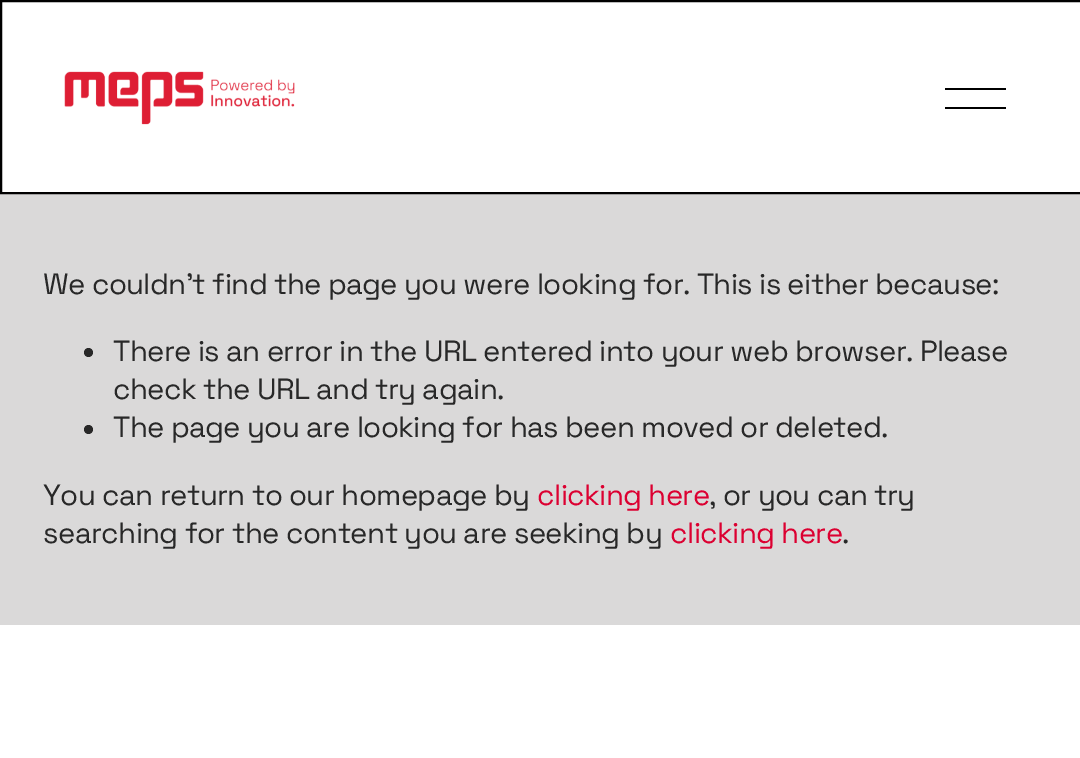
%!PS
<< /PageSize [1080 758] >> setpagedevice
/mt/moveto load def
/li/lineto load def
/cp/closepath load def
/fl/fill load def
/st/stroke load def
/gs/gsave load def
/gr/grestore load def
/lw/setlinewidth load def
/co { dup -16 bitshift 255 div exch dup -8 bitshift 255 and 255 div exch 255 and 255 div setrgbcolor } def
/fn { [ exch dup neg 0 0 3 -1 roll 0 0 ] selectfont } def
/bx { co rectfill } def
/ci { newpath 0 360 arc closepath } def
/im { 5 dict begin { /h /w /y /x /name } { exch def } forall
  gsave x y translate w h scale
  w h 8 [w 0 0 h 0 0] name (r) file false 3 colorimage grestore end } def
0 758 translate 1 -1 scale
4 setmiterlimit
0 0 1080 758 16#DAD9D9 bx
16#FFFFFF co
1 1 mt 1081 1 li 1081 193 li 1 193 li cp gs fl gr
16#000000 co
2 lw
st
(media/1.raw) 64 71 231 54 im
945 88 61 2 16#000000 bx
945 107 61 2 16#000000 bx
16#282828 co
88.5 352.5 4.5 ci fl
88.5 429.5 4.5 ci fl
0 625 1080 133 16#FFFFFF bx
/SpaceGrotesk-Regular 29.3 fn
16#282828 co
43 294 mt -.6 0 (We couldn't find the page you were looking for. This is either because:) ashow
113 361 mt -.6 0 (There is an error in the URL entered into your web browser. Please) ashow
113 399 mt -.6 0 (check the URL and try again.) ashow
113 437 mt -.6 0 (The page you are looking for has been moved or deleted.) ashow
43 505 mt -.6 0 (You can return to our homepage by) ashow
16#DC0031 co
537 505 mt -.6 0 (clicking here) ashow
16#282828 co
709 505 mt -.6 0 (, or you can try) ashow
43 543 mt -.6 0 (searching for the content you are seeking by) ashow
16#DC0031 co
670 543 mt -.6 0 (clicking here) ashow
16#282828 co
842 543 mt -.6 0 (.) ashow
showpage
